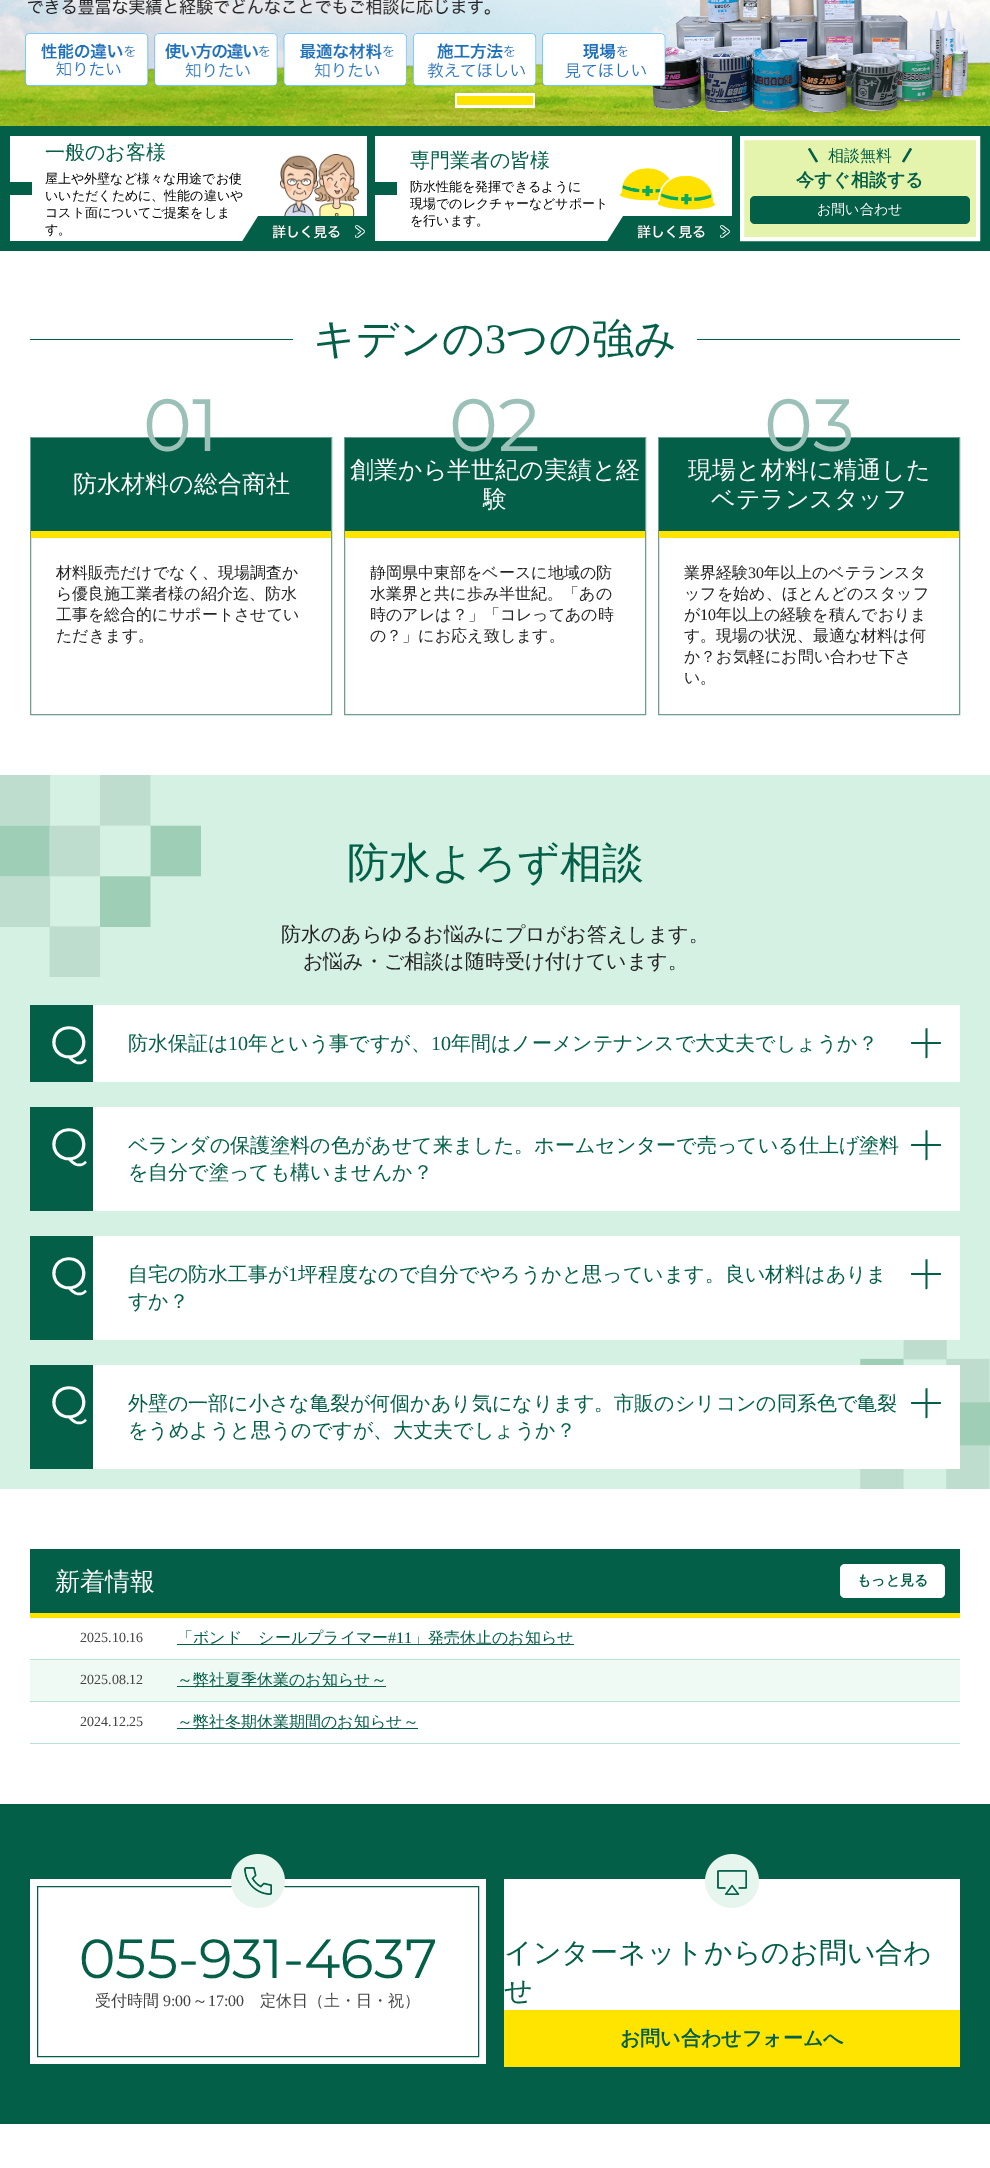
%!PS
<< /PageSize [990 2168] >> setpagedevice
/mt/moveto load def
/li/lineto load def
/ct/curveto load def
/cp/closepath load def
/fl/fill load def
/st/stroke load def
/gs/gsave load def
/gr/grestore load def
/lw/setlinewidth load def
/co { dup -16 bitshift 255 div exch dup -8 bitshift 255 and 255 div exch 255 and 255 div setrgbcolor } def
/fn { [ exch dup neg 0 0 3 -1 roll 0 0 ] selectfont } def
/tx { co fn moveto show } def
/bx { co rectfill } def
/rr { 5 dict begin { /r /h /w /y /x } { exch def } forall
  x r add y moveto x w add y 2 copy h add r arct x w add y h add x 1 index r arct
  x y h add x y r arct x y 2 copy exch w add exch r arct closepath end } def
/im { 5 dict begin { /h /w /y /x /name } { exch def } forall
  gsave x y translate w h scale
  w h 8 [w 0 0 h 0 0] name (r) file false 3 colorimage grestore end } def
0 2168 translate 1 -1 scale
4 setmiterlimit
0 0 990 2168 16#FFFFFF bx
(media/1.raw) 0 0 990 126 im
455 93 80 15 16#FFFFFF bx
457 96 76 9 16#FFE400 bx
0 126 990 125 16#035F48 bx
10 136 357 105 16#FFFFFF bx
(media/2.raw) 280 154 79 62 im
10 182 22 13 16#035F48 bx
(media/3.raw) 242 216 125 25 im
375 136 357 105 16#FFFFFF bx
375 182 22 13 16#035F48 bx
(media/4.raw) 619 168 96 42 im
(media/3.raw) 607 216 125 25 im
16#E4F4AD co
742 138 mt 978 138 li 978 239 li 742 239 li cp gs fl gr
16#FFFFFF co
4 lw
st
16#035F48 co
810 148 mt 818 161.5 li 816 162.5 li 808 149 li cp fl
902 161.5 mt 910 148 li 912 149 li 904 162.5 li cp fl
750 196 220 28 5 rr fl
30 339 930 1 16#035F48 bx
293 339 404 1 16#FFFFFF bx
16#6E9D91 co
1 lw
30.5 437.5 301 277 rectstroke
31 438 300 93 16#035F48 bx
31 531 300 7 16#FFE400 bx
16#6E9D91 co
344.5 437.5 301 277 rectstroke
345 438 300 93 16#035F48 bx
345 531 300 7 16#FFE400 bx
16#6E9D91 co
658.5 437.5 301 277 rectstroke
659 438 300 93 16#035F48 bx
659 531 300 7 16#FFE400 bx
0 775 990 714 16#D5F1E3 bx
(media/5.raw) 0 775 990 714 im
93 1005 867 77 16#FFFFFF bx
30 1005 63 77 16#035F48 bx
911 1042 30 2 1 rr fl
927.5 1029 mt 927.5 1057.5 li 926.5 1058 li 926 1058.5 925.5 1058 925.5 1057.5 ct 925.5 1029 li 926 1028 927.5 1028 927.5 1029 ct cp fl
93 1107 867 104 16#FFFFFF bx
30 1107 63 104 16#035F48 bx
911 1144 30 2 1 rr fl
927.5 1131 mt 927.5 1159.5 li 926.5 1160 li 926 1160.5 925.5 1160 925.5 1159.5 ct 925.5 1131 li 926 1130 927.5 1130 927.5 1131 ct cp fl
93 1236 867 104 16#FFFFFF bx
30 1236 63 104 16#035F48 bx
911 1273 30 2 1 rr fl
927.5 1260 mt 927.5 1288.5 li 926.5 1289 li 926 1289.5 925.5 1289 925.5 1288.5 ct 925.5 1260 li 926 1259 927.5 1259 927.5 1260 ct cp fl
93 1365 867 104 16#FFFFFF bx
30 1365 63 104 16#035F48 bx
911 1402 30 2 1 rr fl
927.5 1389 mt 927.5 1417.5 li 926.5 1418 li 926 1418.5 925.5 1418 925.5 1417.5 ct 925.5 1389 li 926 1388 927.5 1388 927.5 1389 ct cp fl
30 1549 930 64 16#035F48 bx
30 1613 930 5 16#FFE400 bx
16#FFFFFF co
840 1564 105 34 5 rr fl
30 1659 930 1 16#BBE0D4 bx
177 1644 397 1 16#035F48 bx
30 1660 930 41 16#F0FAF5 bx
30 1701 930 1 16#BBE0D4 bx
177 1686 209 1 16#035F48 bx
30 1743 930 1 16#BBE0D4 bx
177 1728 241 1 16#035F48 bx
0 1804 990 320 16#035F48 bx
30 1879 456 185 16#FFFFFF bx
16#035F48 co
37.5 1886.5 441 170 rectstroke
(media/6.raw) 231 1854 54 54 im
504 1879 456 131 16#FFFFFF bx
(media/7.raw) 705 1854 54 54 im
504 2010 456 57 16#FFE400 bx
(一般のお客様) 45 159 /WenQuanYiZenHei-Medium 20 16#035F48 tx
(屋上や外壁など様々な用途でお使) 45 183 /WenQuanYiZenHei-Medium 13 16#000000 tx
(いいただくために、性能の違いや) 45 200 /WenQuanYiZenHei-Medium 13 16#000000 tx
(コスト面についてご提案をしま) 45 217 /WenQuanYiZenHei-Medium 13 16#000000 tx
(す。) 45 234 /WenQuanYiZenHei-Medium 13 16#000000 tx
(専門業者の皆様) 410 167 /WenQuanYiZenHei-Medium 20 16#035F48 tx
(防水性能を発揮できるように) 410 191 /WenQuanYiZenHei-Medium 13 16#000000 tx
(現場でのレクチャーなどサポート) 410 208 /WenQuanYiZenHei-Medium 13 16#000000 tx
(を行います。) 410 225 /WenQuanYiZenHei-Medium 13 16#000000 tx
(相談無料) 828 161 /WenQuanYiZenHei-Medium 16 16#035F48 tx
(今すぐ相談する) 796 186 /WenQuanYiZenHei-Bold 18 16#035F48 tx
(お問い合わせ) 817 214 /WenQuanYiZenHei-Medium 14 16#FFFFFF tx
(キデンの) 313 353 /WenQuanYiZenHei-Medium 42 16#035F48 tx
(3) 485 353 /LiberationSerif-Regular 42 16#035F48 tx
(つの強み) 506 353 /WenQuanYiZenHei-Medium 42 16#035F48 tx
(01) 143 451 /Montserrat-Regular 74 16#9AC0B7 tx
(防水材料の総合商社) 73 492 /WenQuanYiZenHei-Medium 24 16#FFFFFF tx
(材料販売だけでなく、現場調査か) 56 578 /WenQuanYiZenHei-Medium 16 16#232323 tx
(ら優良施工業者様の紹介迄、防水) 56 599 /WenQuanYiZenHei-Medium 16 16#232323 tx
(工事を総合的にサポートさせてい) 56 620 /WenQuanYiZenHei-Medium 16 16#232323 tx
(ただきます。) 56 641 /WenQuanYiZenHei-Medium 16 16#232323 tx
(02) 449 451 /Montserrat-Regular 74 16#9AC0B7 tx
(創業から半世紀の実績と経) 350 478 /WenQuanYiZenHei-Medium 24 16#FFFFFF tx
(験) 483 507 /WenQuanYiZenHei-Medium 24 16#FFFFFF tx
(静岡県中東部をベースに地域の防) 370 578 /WenQuanYiZenHei-Medium 16 16#232323 tx
(水業界と共に歩み半世紀。「あの) 370 599 /WenQuanYiZenHei-Medium 16 16#232323 tx
(時のアレは？」「コレってあの時) 370 620 /WenQuanYiZenHei-Medium 16 16#232323 tx
(の？」にお応え致します。) 370 641 /WenQuanYiZenHei-Medium 16 16#232323 tx
(03) 764 451 /Montserrat-Regular 74 16#9AC0B7 tx
(現場と材料に精通した) 688 478 /WenQuanYiZenHei-Medium 24 16#FFFFFF tx
(ベテランスタッフ) 711 507 /WenQuanYiZenHei-Medium 24 16#FFFFFF tx
(業界経験) 684 578 /WenQuanYiZenHei-Medium 16 16#232323 tx
(30) 748 578 /LiberationSerif-Regular 16 16#232323 tx
(年以上のベテランスタ) 764 578 /WenQuanYiZenHei-Medium 16 16#232323 tx
(ッフを始め、ほとんどのスタッフ) 684 599 /WenQuanYiZenHei-Medium 16 16#232323 tx
(が) 684 620 /WenQuanYiZenHei-Medium 16 16#232323 tx
(10) 700 620 /LiberationSerif-Regular 16 16#232323 tx
(年以上の経験を積んでおりま) 716 620 /WenQuanYiZenHei-Medium 16 16#232323 tx
(す。現場の状況、最適な材料は何) 684 641 /WenQuanYiZenHei-Medium 16 16#232323 tx
(か？お気軽にお問い合わせ下さ) 684 662 /WenQuanYiZenHei-Medium 16 16#232323 tx
(い。) 684 683 /WenQuanYiZenHei-Medium 16 16#232323 tx
(防水よろず相談) 347 877 /WenQuanYiZenHei-Medium 42 16#035F48 tx
(防水のあらゆるお悩みにプロがお答えします。) 281 941 /WenQuanYiZenHei-Medium 20 16#232323 tx
(お悩み・ご相談は随時受け付けています。) 303 968 /WenQuanYiZenHei-Medium 20 16#232323 tx
(Q) 50 1058 /Montserrat-Regular 45 16#FFFFFF tx
(防水保証は) 128 1050 /WenQuanYiZenHei-Medium 20 16#035F48 tx
(10) 228 1050 /LiberationSerif-Regular 20 16#035F48 tx
(年という事ですが、) 248 1050 /WenQuanYiZenHei-Medium 20 16#035F48 tx
(10) 431 1050 /LiberationSerif-Regular 20 16#035F48 tx
(年間はノーメンテナンスで大丈夫でしょうか？) 451 1050 /WenQuanYiZenHei-Medium 20 16#035F48 tx
(Q) 50 1160 /Montserrat-Regular 45 16#FFFFFF tx
(ベランダの保護塗料の色があせて来ました。ホームセンターで売っている仕上げ塗料) 128 1152 /WenQuanYiZenHei-Medium 20 16#035F48 tx
(を自分で塗っても構いませんか？) 128 1179 /WenQuanYiZenHei-Medium 20 16#035F48 tx
(Q) 50 1289 /Montserrat-Regular 45 16#FFFFFF tx
(自宅の防水工事が) 128 1281 /WenQuanYiZenHei-Medium 20 16#035F48 tx
(1) 288 1281 /LiberationSerif-Regular 20 16#035F48 tx
(坪程度なので自分でやろうかと思っています。良い材料はありま) 298 1281 /WenQuanYiZenHei-Medium 20 16#035F48 tx
(すか？) 128 1308 /WenQuanYiZenHei-Medium 20 16#035F48 tx
(Q) 50 1418 /Montserrat-Regular 45 16#FFFFFF tx
(外壁の一部に小さな亀裂が何個かあり気になります。市販のシリコンの同系色で亀裂) 128 1410 /WenQuanYiZenHei-Medium 20 16#035F48 tx
(をうめようと思うのですが、大丈夫でしょうか？) 128 1437 /WenQuanYiZenHei-Medium 20 16#035F48 tx
(新着情報) 55 1590 /WenQuanYiZenHei-Medium 25 16#FFFFFF tx
(もっと見る) 857 1585 /WenQuanYiZenHei-Bold 14 16#035F48 tx
(2025.10.16) 80 1642 /LiberationSerif-Regular 14 16#444444 tx
(「ボンド　シールプライマー) 177 1643 /WenQuanYiZenHei-Medium 16 16#035F48 tx
(#11) 388 1643 /LiberationSerif-Regular 16 16#035F48 tx
(」発売休止のお知らせ) 412 1643 /WenQuanYiZenHei-Medium 16 16#035F48 tx
(2025.08.12) 80 1684 /LiberationSerif-Regular 14 16#444444 tx
(～弊社夏季休業のお知らせ～) 177 1685 /WenQuanYiZenHei-Medium 16 16#035F48 tx
(2024.12.25) 80 1726 /LiberationSerif-Regular 14 16#444444 tx
(～弊社冬期休業期間のお知らせ～) 177 1727 /WenQuanYiZenHei-Medium 16 16#035F48 tx
(055-931-4637) 79 1978 /Montserrat-Regular 55 16#035F48 tx
(受付時間) 95 2006 /WenQuanYiZenHei-Medium 16 16#444444 tx
(9:00) 163 2006 /LiberationSerif-Regular 16 16#444444 tx
(～) 192 2006 /WenQuanYiZenHei-Medium 16 16#444444 tx
(17:00) 208 2006 /LiberationSerif-Regular 16 16#444444 tx
(定休日（土・日・祝）) 260 2006 /WenQuanYiZenHei-Medium 16 16#444444 tx
(インターネットからのお問い合わ) 504 1962 /WenQuanYiZenHei-Medium 28 16#035F48 tx
(せ) 504 2000 /WenQuanYiZenHei-Medium 28 16#035F48 tx
(お問い合わせフォームへ) 620 2045 /WenQuanYiZenHei-Bold 20 16#035F48 tx
showpage
